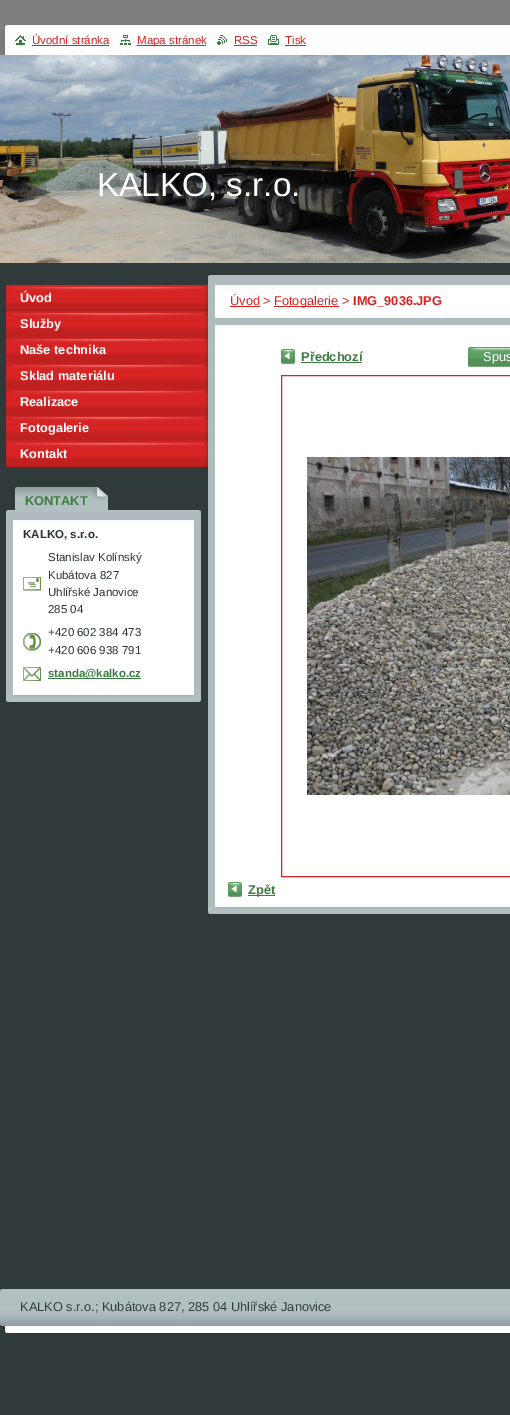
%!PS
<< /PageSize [510 1415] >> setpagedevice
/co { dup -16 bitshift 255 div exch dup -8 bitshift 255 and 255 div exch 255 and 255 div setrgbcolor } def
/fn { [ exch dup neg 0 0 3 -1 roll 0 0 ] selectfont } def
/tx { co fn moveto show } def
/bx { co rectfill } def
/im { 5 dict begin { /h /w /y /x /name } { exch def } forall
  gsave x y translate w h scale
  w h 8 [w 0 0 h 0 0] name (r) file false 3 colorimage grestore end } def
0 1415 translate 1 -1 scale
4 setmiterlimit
0 0 510 1415 16#313A3B bx
(media/1.raw) 0 0 510 55 im
(media/6.raw) 3 25 507 30 im
(media/2.raw) 15 35 11 10 im
32 45 77 1 16#D62424 bx
(media/3.raw) 120 35 11 10 im
137 45 69 1 16#D62424 bx
(media/4.raw) 217 35 10 10 im
234 45 23 1 16#D62424 bx
(media/5.raw) 268 35 11 10 im
285 45 21 1 16#D62424 bx
(media/7.raw) 0 55 510 208 im
(media/8.raw) 3 285 205 26 im
(media/9.raw) 3 311 205 26 im
(media/9.raw) 3 337 205 26 im
(media/9.raw) 3 363 205 26 im
(media/9.raw) 3 389 205 26 im
(media/9.raw) 3 415 205 26 im
(media/10.raw) 5 441 203 26 im
(media/11.raw) 15 487 93 23 im
(media/12.raw) 15 487 2 2 im
6 512 195 183 16#AFBCBE bx
(media/13.raw) 6 695 195 7 im
(media/14.raw) 6 510 195 2 im
13 523 181 172 16#FFFFFF bx
13 520 181 3 16#F9FBFB bx
(media/15.raw) 23 577 18 14 im
(media/16.raw) 23 633 18 18 im
(media/17.raw) 23 667 18 14 im
48 678 93 1 16#3C7C41 bx
208 275 302 632 16#AFBCBE bx
(media/18.raw) 208 907 302 7 im
(media/19.raw) 208 275 2 2 im
215 288 295 27 16#FFFFFF bx
215 315 295 3 16#F9FBFB bx
215 285 295 3 16#F9FBFB bx
230 306 30 1 16#D62424 bx
274 306 65 1 16#D62424 bx
215 328 295 576 16#FFFFFF bx
215 904 295 3 16#F9FBFB bx
215 325 295 3 16#F9FBFB bx
(media/20.raw) 281 349 14 15 im
301 362 61 1 16#3C7C41 bx
(media/21.raw) 468 347 10 20 im
(media/22.raw) 478 347 32 20 im
16#D62424 co
281.5 375.5 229 501 rectstroke
(media/23.raw) 307 457 203 338 im
(media/20.raw) 228 882 14 15 im
248 895 27 1 16#3C7C41 bx
(media/24.raw) 0 1289 510 44 im
(Úvodní stránka) 32 44 /LiberationSans-Regular 11.5 16#D62424 tx
(Mapa stránek) 137 44 /LiberationSans-Regular 11.5 16#D62424 tx
(RSS) 234 44 /LiberationSans-Regular 11.5 16#D62424 tx
(Tisk) 285 44 /LiberationSans-Regular 11.5 16#D62424 tx
(KALKO, s.r.o.) 97 196 /LiberationSans-Regular 33.25 16#FFFFFF tx
(Úvod) 20 302 /LiberationSans-Bold 12.8 16#FFFFFF tx
(Služby) 20 328 /LiberationSans-Bold 12.8 16#FFFFFF tx
(Naše technika) 20 354 /LiberationSans-Bold 12.8 16#FFFFFF tx
(Sklad materiálu) 20 380 /LiberationSans-Bold 12.8 16#FFFFFF tx
(Realizace) 20 406 /LiberationSans-Bold 12.8 16#FFFFFF tx
(Fotogalerie) 20 432 /LiberationSans-Bold 12.8 16#FFFFFF tx
(Kontakt) 20 458 /LiberationSans-Bold 12.8 16#FFFFFF tx
(KONTAKT) 25 505 /LiberationSans-Bold 12.8 16#3C7C41 tx
(KALKO, s.r.o.) 23 538 /LiberationSans-Bold 11.5 16#2B3334 tx
(Stanislav Kolínský) 48 561 /LiberationSans-Regular 11.5 16#2B3334 tx
(Kubátova 827) 48 579 /LiberationSans-Regular 11.5 16#2B3334 tx
(Uhlířské Janovice) 48 596 /LiberationSans-Regular 11.5 16#2B3334 tx
(285 04) 48 613 /LiberationSans-Regular 11.5 16#2B3334 tx
(+420 602 384 473) 48 636 /LiberationSans-Regular 11.5 16#2B3334 tx
(+420 606 938 791) 48 654 /LiberationSans-Regular 11.5 16#2B3334 tx
(standa@kalko.cz) 48 677 /LiberationSans-Bold 11.5 16#3C7C41 tx
(Úvod >) 230 305 /LiberationSans-Regular 12.8 16#D62424 tx
(Fotogalerie >) 274 305 /LiberationSans-Regular 12.8 16#D62424 tx
(IMG_9036.JPG) 353 305 /LiberationSans-Bold 12.8 16#D62424 tx
(Předchozí) 301 361 /LiberationSans-Bold 12.8 16#3C7C41 tx
(Spus) 483 361 /LiberationSans-Regular 12.8 16#FFFFFF tx
(Zpět) 248 894 /LiberationSans-Bold 12.8 16#3C7C41 tx
(KALKO s.r.o.; Kubátova 827, 285 04 Uhlířské Janovice) 20 1311 /LiberationSans-Regular 12.8 16#353D3F tx
showpage
